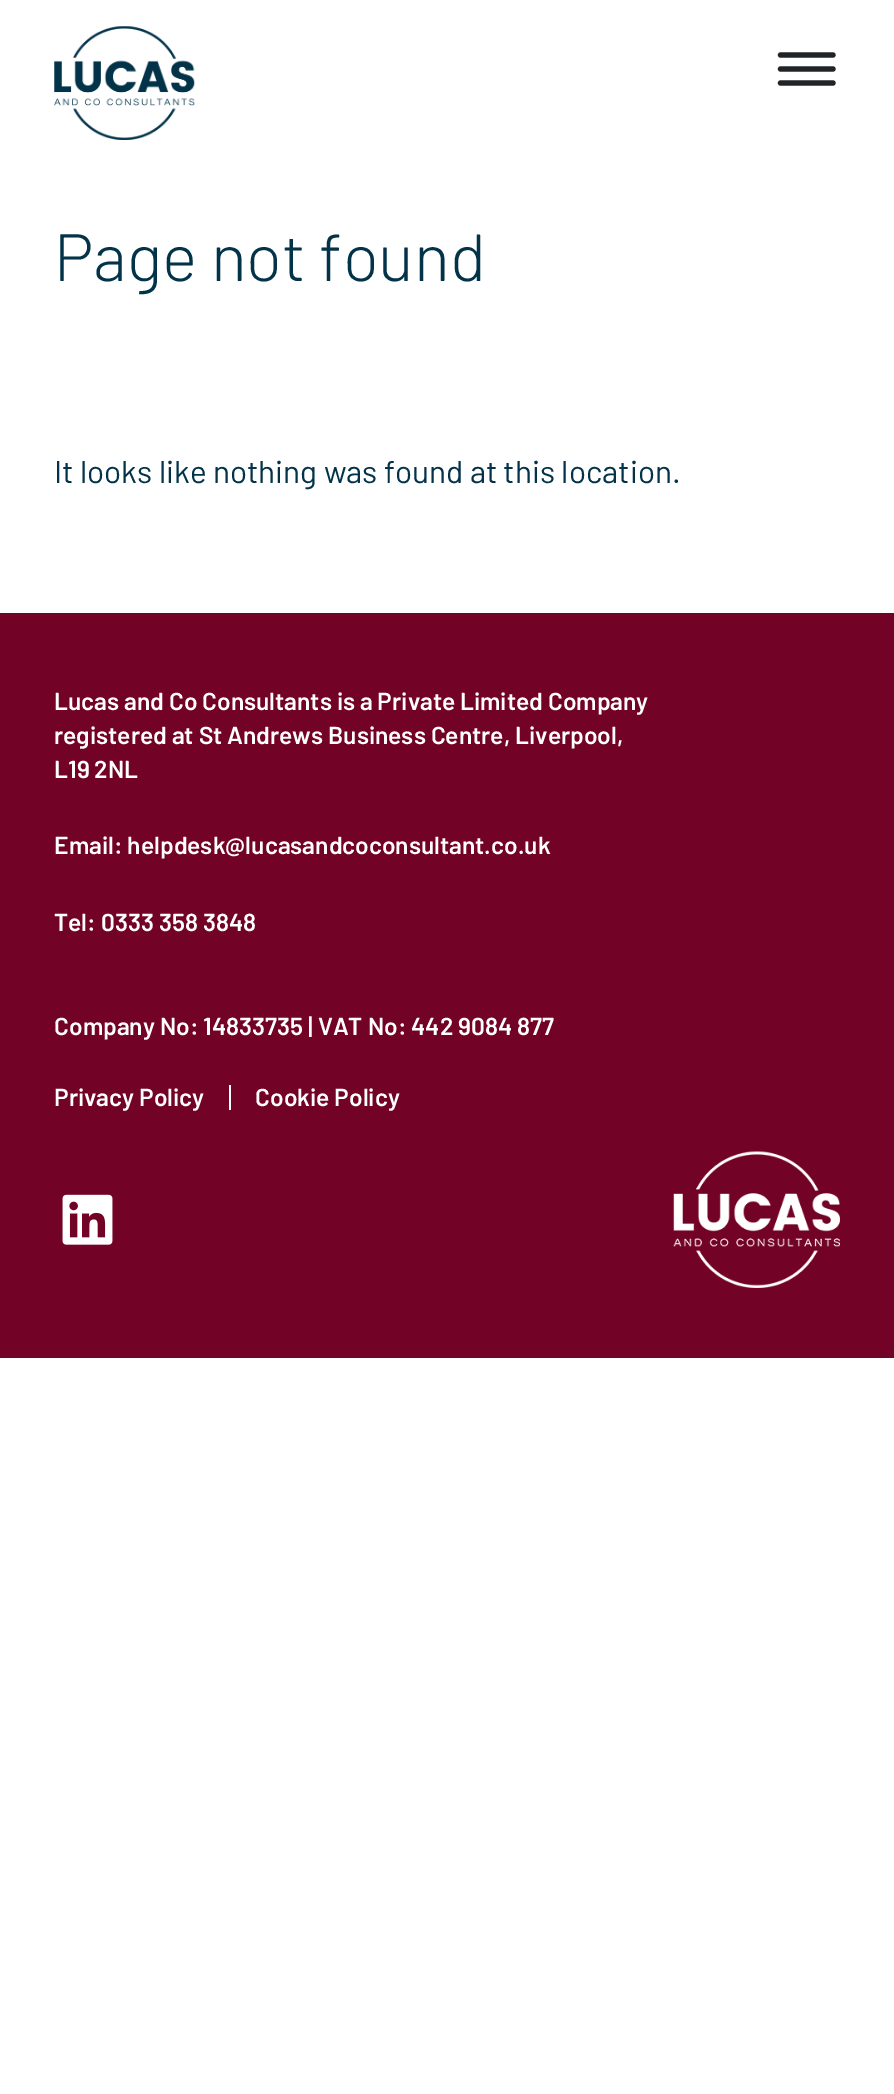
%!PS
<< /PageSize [894 2094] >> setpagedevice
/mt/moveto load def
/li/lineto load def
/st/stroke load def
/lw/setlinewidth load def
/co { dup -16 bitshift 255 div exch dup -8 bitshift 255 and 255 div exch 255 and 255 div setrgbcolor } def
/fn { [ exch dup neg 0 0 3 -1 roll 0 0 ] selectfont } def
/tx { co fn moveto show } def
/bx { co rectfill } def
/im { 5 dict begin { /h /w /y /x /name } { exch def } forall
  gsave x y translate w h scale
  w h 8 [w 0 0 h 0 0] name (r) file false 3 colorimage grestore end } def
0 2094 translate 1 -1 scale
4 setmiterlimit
0 0 894 2094 16#FFFFFF bx
(media/1.raw) 54 26 141 114 im
16#212427 co
5.2 lw
1 setlinecap
780.5 55 mt 833 55 li 780.5 69 mt 833 69 li 780.5 69 mt 833 69 li 780.5 83 mt 833 83 li st
0 613 894 745 16#720226 bx
229 1085 2 25 16#FFFFFF bx
(media/2.raw) 62 1194 51 51 im
(media/3.raw) 673 1151 167 137 im
(Page not found) 54 281 /Barlow-Light 66.5 16#023349 tx
(It looks like nothing was found at this location.) 54 483 /Barlow-Regular 31.5 16#023349 tx
(Lucas and Co Consultants is a Private Limited Company) 54 710 /Barlow-SemiBold 24.5 16#FFFFFF tx
(registered at St Andrews Business Centre, Liverpool,) 54 744 /Barlow-SemiBold 24.5 16#FFFFFF tx
(L19 2NL) 54 778 /Barlow-SemiBold 24.5 16#FFFFFF tx
(Email: helpdesk@lucasandcoconsultant.co.uk) 54 854 /Barlow-SemiBold 24.5 16#FFFFFF tx
(Tel: 0333 358 3848) 54 931 /Barlow-SemiBold 24.5 16#FFFFFF tx
(Company No: 14833735 | VAT No: 442 9084 877) 54 1035 /Barlow-SemiBold 24.5 16#FFFFFF tx
(Privacy Policy) 54 1106 /Barlow-SemiBold 24.5 16#FFFFFF tx
(Cookie Policy) 255 1106 /Barlow-SemiBold 24.5 16#FFFFFF tx
showpage
